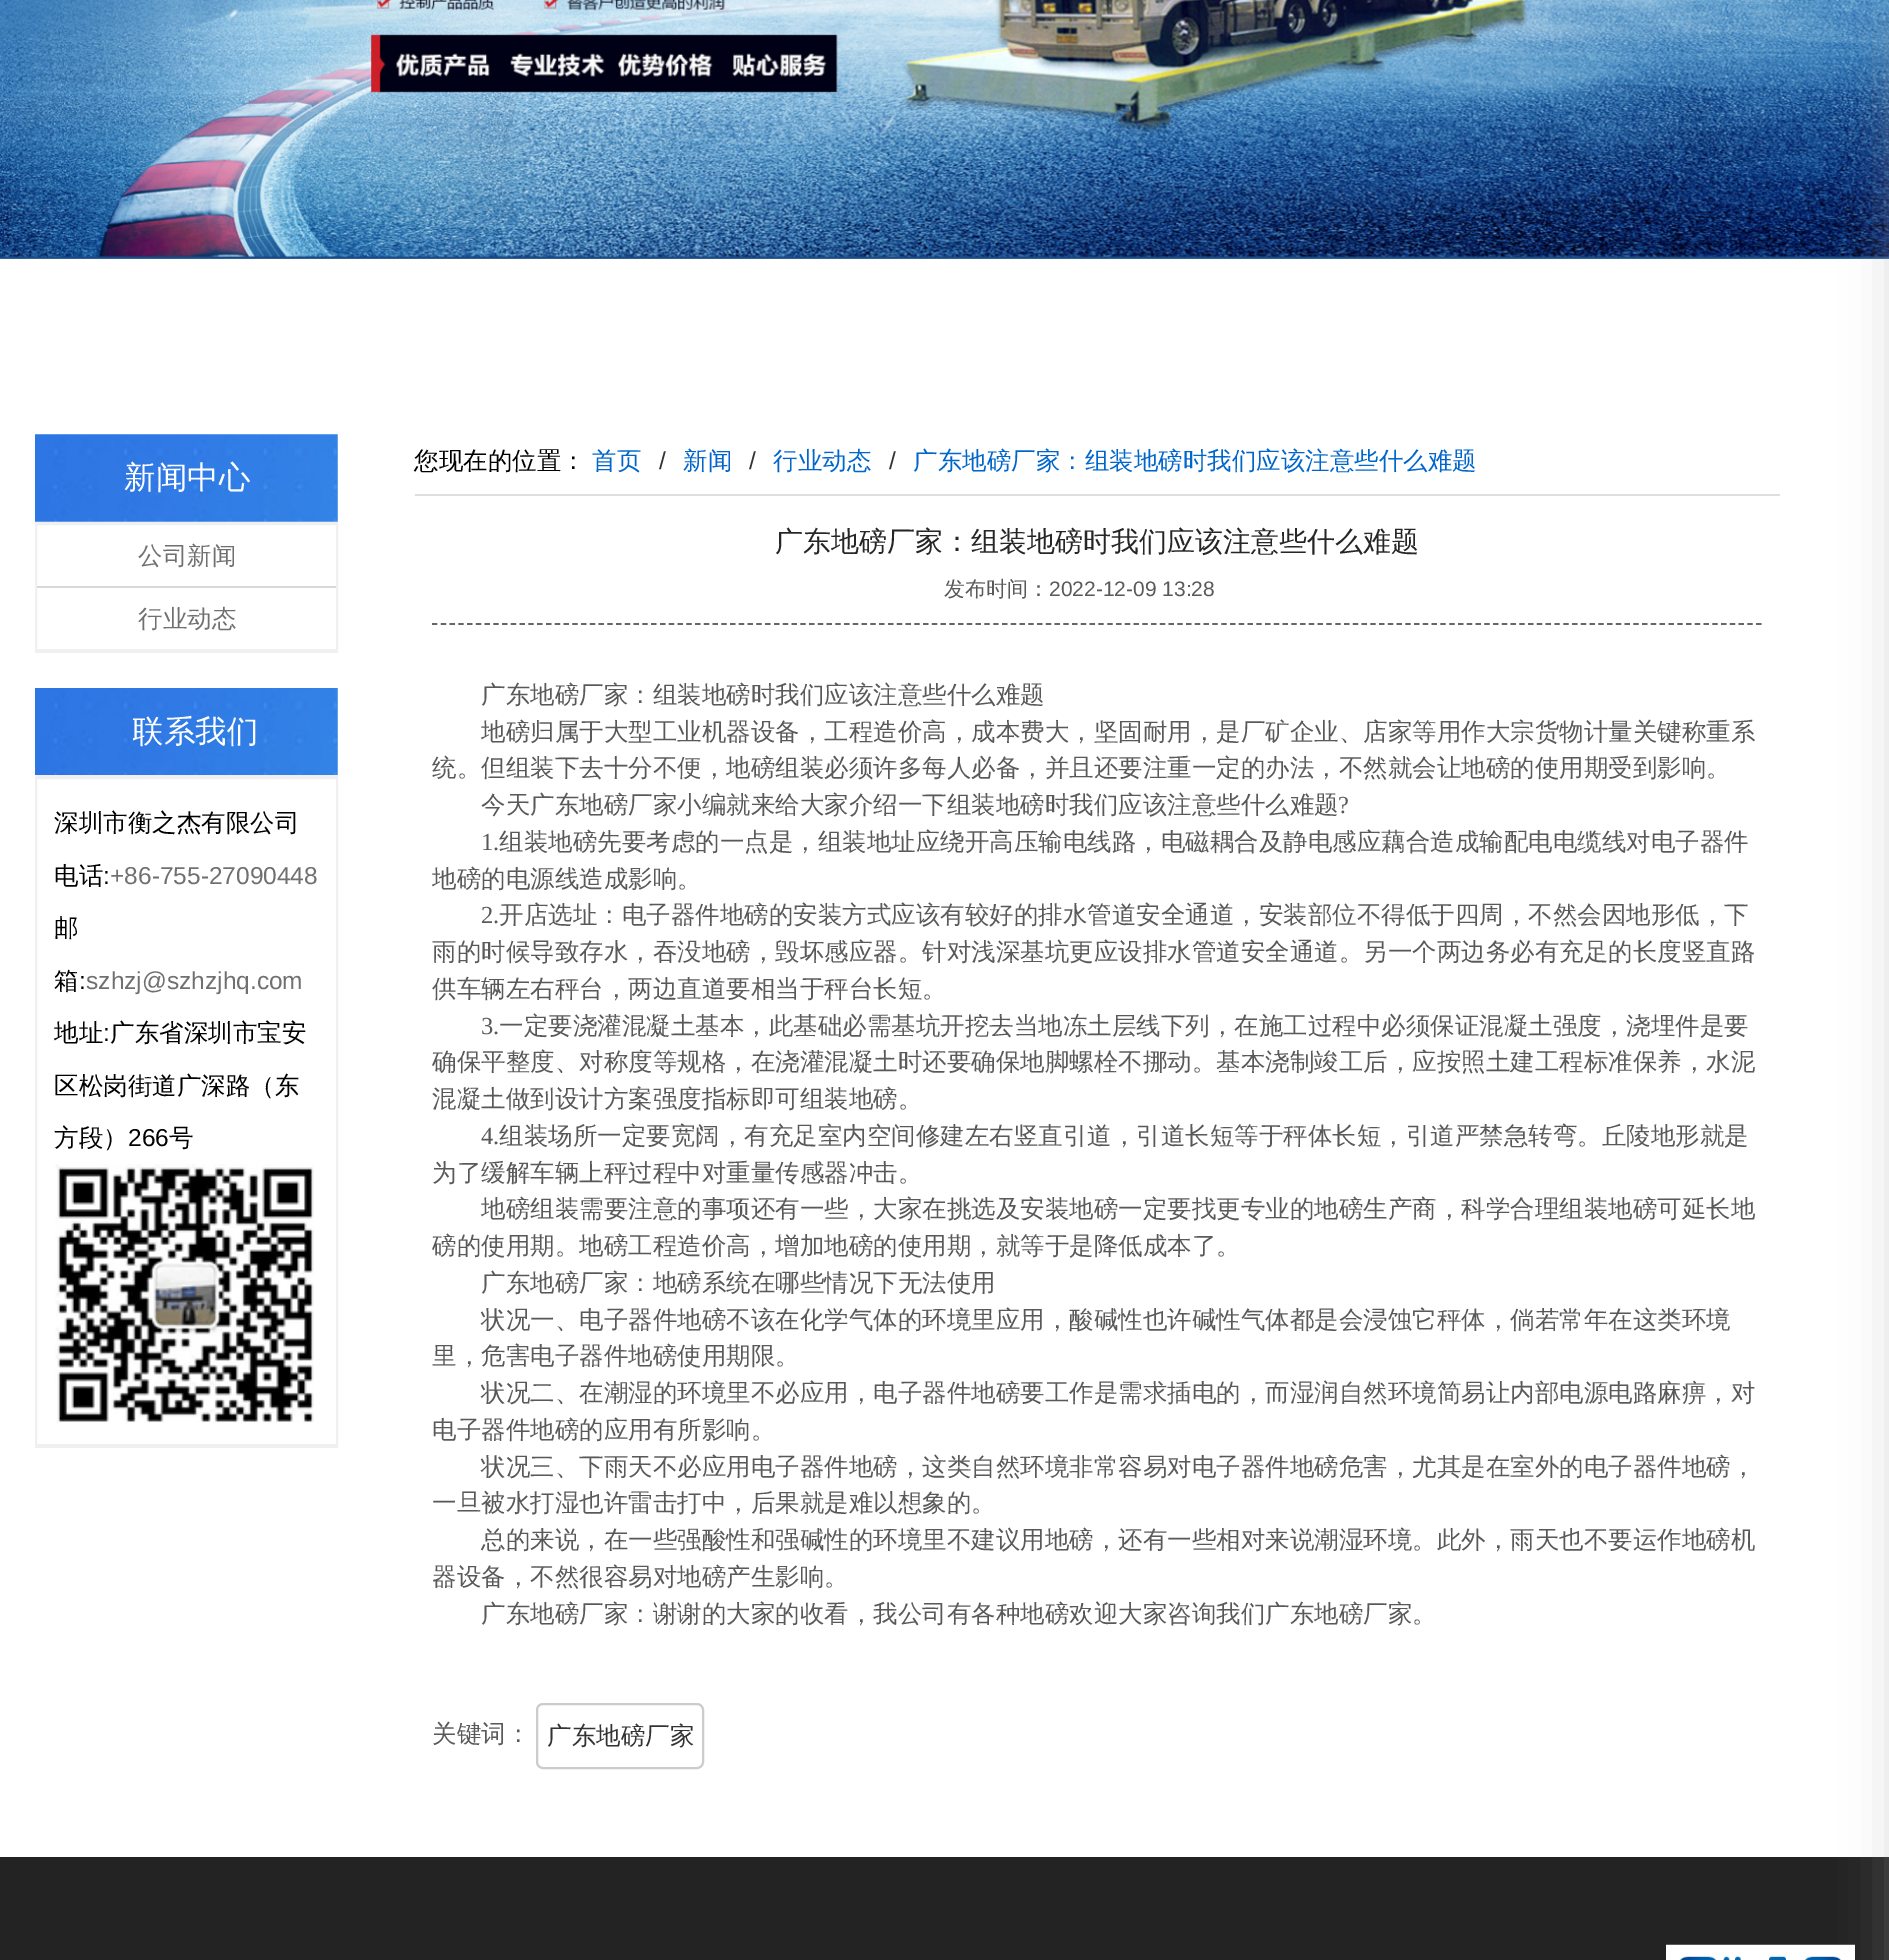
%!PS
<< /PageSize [1889 1960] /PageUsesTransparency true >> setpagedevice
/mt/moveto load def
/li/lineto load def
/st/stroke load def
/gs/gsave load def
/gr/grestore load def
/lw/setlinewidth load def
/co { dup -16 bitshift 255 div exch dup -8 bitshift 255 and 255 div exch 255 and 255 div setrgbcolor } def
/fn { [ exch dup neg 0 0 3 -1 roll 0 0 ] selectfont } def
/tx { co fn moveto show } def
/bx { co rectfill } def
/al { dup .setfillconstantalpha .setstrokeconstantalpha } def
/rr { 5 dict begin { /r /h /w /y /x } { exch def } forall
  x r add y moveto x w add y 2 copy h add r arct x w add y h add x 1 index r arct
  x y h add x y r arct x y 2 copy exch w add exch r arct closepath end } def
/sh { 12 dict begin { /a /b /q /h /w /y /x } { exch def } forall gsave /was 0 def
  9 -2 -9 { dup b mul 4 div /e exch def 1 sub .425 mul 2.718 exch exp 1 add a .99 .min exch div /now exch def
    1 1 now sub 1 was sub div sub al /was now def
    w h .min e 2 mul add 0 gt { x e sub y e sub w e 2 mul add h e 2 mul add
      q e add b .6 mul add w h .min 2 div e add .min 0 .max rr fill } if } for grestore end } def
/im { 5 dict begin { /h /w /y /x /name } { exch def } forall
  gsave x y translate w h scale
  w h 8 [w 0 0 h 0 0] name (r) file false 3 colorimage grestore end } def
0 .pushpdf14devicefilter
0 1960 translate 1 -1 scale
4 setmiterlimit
0 0 1889 1960 16#FFFFFF bx
(media/1.raw) 0 0 1889 259 im
(media/2.raw) 35 434 303 88 im
35 522 303 1 16#F0F0F0 bx
2 lw
36 524 301 126 rectstroke
37 586 299 2 16#D9D9D9 bx
35 651 303 2 16#F0F0F0 bx
(media/3.raw) 35 688 303 87 im
35 775 303 2 16#F0F0F0 bx
36 778 301 667 rectstroke
(media/4.raw) 55 1164 259 259 im
35 1446 303 2 16#F0F0F0 bx
415 494 1365 2 16#DEDEDE bx
16#666666 co
1.8 lw
[5.25 3.52] 0 setdash
432 624 mt 1762 624 li st
16#CCCCCC co
2 lw
[] 0 setdash
537 1704 166 64 6 rr st
0 1857 1889 103 16#232323 bx
(media/5.raw) 1666 1944 189 16 im
16#A7A5A5 co
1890 26 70 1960 0 23.5 .38 sh
(新闻中心) 124 488 /WenQuanYiZenHei-Medium 31.5 16#FFFFFF tx
(公司新闻) 138 564 /WenQuanYiZenHei-Medium 24.5 16#707070 tx
(行业动态) 138 627 /WenQuanYiZenHei-Medium 24.5 16#707070 tx
gs
133 688 126 87 rectclip
(联系我们) 132 742 /WenQuanYiZenHei-Medium 31.5 16#FFFFFF tx
gr
(深圳市衡之杰有限公司) 54 831 /WenQuanYiZenHei-Medium 24.5 16#000000 tx
(电话) 54 884 /WenQuanYiZenHei-Medium 24.5 16#000000 tx
(:) 103 884 /LiberationSans-Regular 24.5 16#000000 tx
(+86-755-27090448) 110 884 /LiberationSans-Regular 24.5 16#707070 tx
(邮) 54 936 /WenQuanYiZenHei-Medium 24.5 16#000000 tx
(箱) 54 989 /WenQuanYiZenHei-Medium 24.5 16#000000 tx
(:) 79 989 /LiberationSans-Regular 24.5 16#000000 tx
(szhzj@szhzjhq.com) 86 989 /LiberationSans-Regular 24.5 16#707070 tx
(地址) 54 1041 /WenQuanYiZenHei-Medium 24.5 16#000000 tx
(:) 103 1041 /LiberationSans-Regular 24.5 16#000000 tx
(广东省深圳市宝安) 110 1041 /WenQuanYiZenHei-Medium 24.5 16#000000 tx
(区松岗街道广深路（东) 54 1094 /WenQuanYiZenHei-Medium 24.5 16#000000 tx
(方段）) 54 1146 /WenQuanYiZenHei-Medium 24.5 16#000000 tx
(266) 128 1146 /LiberationSans-Regular 24.5 16#000000 tx
(号) 169 1146 /WenQuanYiZenHei-Medium 24.5 16#000000 tx
(您现在的位置：) 414 469 /WenQuanYiZenHei-Medium 24.5 16#000000 tx
(首页) 592 469 /WenQuanYiZenHei-Medium 24.5 16#0066CC tx
(/) 659 469 /LiberationSans-Regular 24.5 16#333333 tx
(新闻) 683 469 /WenQuanYiZenHei-Medium 24.5 16#0066CC tx
(/) 749 469 /LiberationSans-Regular 24.5 16#333333 tx
(行业动态) 773 469 /WenQuanYiZenHei-Medium 24.5 16#0066CC tx
(/) 889 469 /LiberationSans-Regular 24.5 16#333333 tx
(广东地磅厂家：组装地磅时我们应该注意些什么难题) 913 469 /WenQuanYiZenHei-Medium 24.5 16#0066CC tx
(广东地磅厂家：组装地磅时我们应该注意些什么难题) 775 551 /WenQuanYiZenHei-Medium 28 16#262626 tx
(发布时间：) 944 596 /WenQuanYiZenHei-Medium 21 16#595959 tx
(2022-12-09 13:28) 1049 596 /LiberationSans-Regular 21 16#595959 tx
(广东地磅厂家：组装地磅时我们应该注意些什么难题) 481 703 /WenQuanYiZenHei-Medium 24.5 16#595959 tx
(地磅归属于大型工业机器设备，工程造价高，成本费大，坚固耐用，是厂矿企业、店家等用作大宗货物计量关键称重系) 481 740 /WenQuanYiZenHei-Medium 24.5 16#595959 tx
(统。但组装下去十分不便，地磅组装必须许多每人必备，并且还要注重一定的办法，不然就会让地磅的使用期受到影响。) 432 776 /WenQuanYiZenHei-Medium 24.5 16#595959 tx
(今天广东地磅厂家小编就来给大家介绍一下组装地磅时我们应该注意些什么难题) 481 813 /WenQuanYiZenHei-Medium 24.5 16#595959 tx
(?) 1338 813 /LiberationSerif-Regular 24.5 16#595959 tx
(1.) 481 850 /LiberationSerif-Regular 24.5 16#595959 tx
(组装地磅先要考虑的一点是，组装地址应绕开高压输电线路，电磁耦合及静电感应藕合造成输配电电缆线对电子器件) 499 850 /WenQuanYiZenHei-Medium 24.5 16#595959 tx
gs
432 642 1330 1061 rectclip
(地磅的电源线造成影响。) 432 887 /WenQuanYiZenHei-Medium 24.5 16#595959 tx
gr
(2.) 481 923 /LiberationSerif-Regular 24.5 16#595959 tx
(开店选址：电子器件地磅的安装方式应该有较好的排水管道安全通道，安装部位不得低于四周，不然会因地形低，下) 499 923 /WenQuanYiZenHei-Medium 24.5 16#595959 tx
(雨的时候导致存水，吞没地磅，毁坏感应器。针对浅深基坑更应设排水管道安全通道。另一个两边务必有充足的长度竖直路) 432 960 /WenQuanYiZenHei-Medium 24.5 16#595959 tx
(供车辆左右秤台，两边直道要相当于秤台长短。) 432 997 /WenQuanYiZenHei-Medium 24.5 16#595959 tx
(3.) 481 1034 /LiberationSerif-Regular 24.5 16#595959 tx
(一定要浇灌混凝土基本，此基础必需基坑开挖去当地冻土层线下列，在施工过程中必须保证混凝土强度，浇埋件是要) 499 1034 /WenQuanYiZenHei-Medium 24.5 16#595959 tx
(确保平整度、对称度等规格，在浇灌混凝土时还要确保地脚螺栓不挪动。基本浇制竣工后，应按照土建工程标准保养，水泥) 432 1070 /WenQuanYiZenHei-Medium 24.5 16#595959 tx
(混凝土做到设计方案强度指标即可组装地磅。) 432 1107 /WenQuanYiZenHei-Medium 24.5 16#595959 tx
(4.) 481 1144 /LiberationSerif-Regular 24.5 16#595959 tx
(组装场所一定要宽阔，有充足室内空间修建左右竖直引道，引道长短等于秤体长短，引道严禁急转弯。丘陵地形就是) 499 1144 /WenQuanYiZenHei-Medium 24.5 16#595959 tx
(为了缓解车辆上秤过程中对重量传感器冲击。) 432 1181 /WenQuanYiZenHei-Medium 24.5 16#595959 tx
(地磅组装需要注意的事项还有一些，大家在挑选及安装地磅一定要找更专业的地磅生产商，科学合理组装地磅可延长地) 481 1217 /WenQuanYiZenHei-Medium 24.5 16#595959 tx
(磅的使用期。地磅工程造价高，增加地磅的使用期，就等于是降低成本了。) 432 1254 /WenQuanYiZenHei-Medium 24.5 16#595959 tx
(广东地磅厂家：地磅系统在哪些情况下无法使用) 481 1291 /WenQuanYiZenHei-Medium 24.5 16#595959 tx
(状况一、电子器件地磅不该在化学气体的环境里应用，酸碱性也许碱性气体都是会浸蚀它秤体，倘若常年在这类环境) 481 1328 /WenQuanYiZenHei-Medium 24.5 16#595959 tx
(里，危害电子器件地磅使用期限。) 432 1364 /WenQuanYiZenHei-Medium 24.5 16#595959 tx
(状况二、在潮湿的环境里不必应用，电子器件地磅要工作是需求插电的，而湿润自然环境简易让内部电源电路麻痹，对) 481 1401 /WenQuanYiZenHei-Medium 24.5 16#595959 tx
(电子器件地磅的应用有所影响。) 432 1438 /WenQuanYiZenHei-Medium 24.5 16#595959 tx
(状况三、下雨天不必应用电子器件地磅，这类自然环境非常容易对电子器件地磅危害，尤其是在室外的电子器件地磅，) 481 1475 /WenQuanYiZenHei-Medium 24.5 16#595959 tx
(一旦被水打湿也许雷击打中，后果就是难以想象的。) 432 1511 /WenQuanYiZenHei-Medium 24.5 16#595959 tx
(总的来说，在一些强酸性和强碱性的环境里不建议用地磅，还有一些相对来说潮湿环境。此外，雨天也不要运作地磅机) 481 1548 /WenQuanYiZenHei-Medium 24.5 16#595959 tx
(器设备，不然很容易对地磅产生影响。) 432 1585 /WenQuanYiZenHei-Medium 24.5 16#595959 tx
(广东地磅厂家：谢谢的大家的收看，我公司有各种地磅欢迎大家咨询我们广东地磅厂家。) 481 1622 /WenQuanYiZenHei-Medium 24.5 16#595959 tx
(关键词：) 432 1742 /WenQuanYiZenHei-Medium 24.5 16#595959 tx
(广东地磅厂家) 547 1744 /WenQuanYiZenHei-Medium 24.5 16#333333 tx
.poppdf14devicefilter showpage
